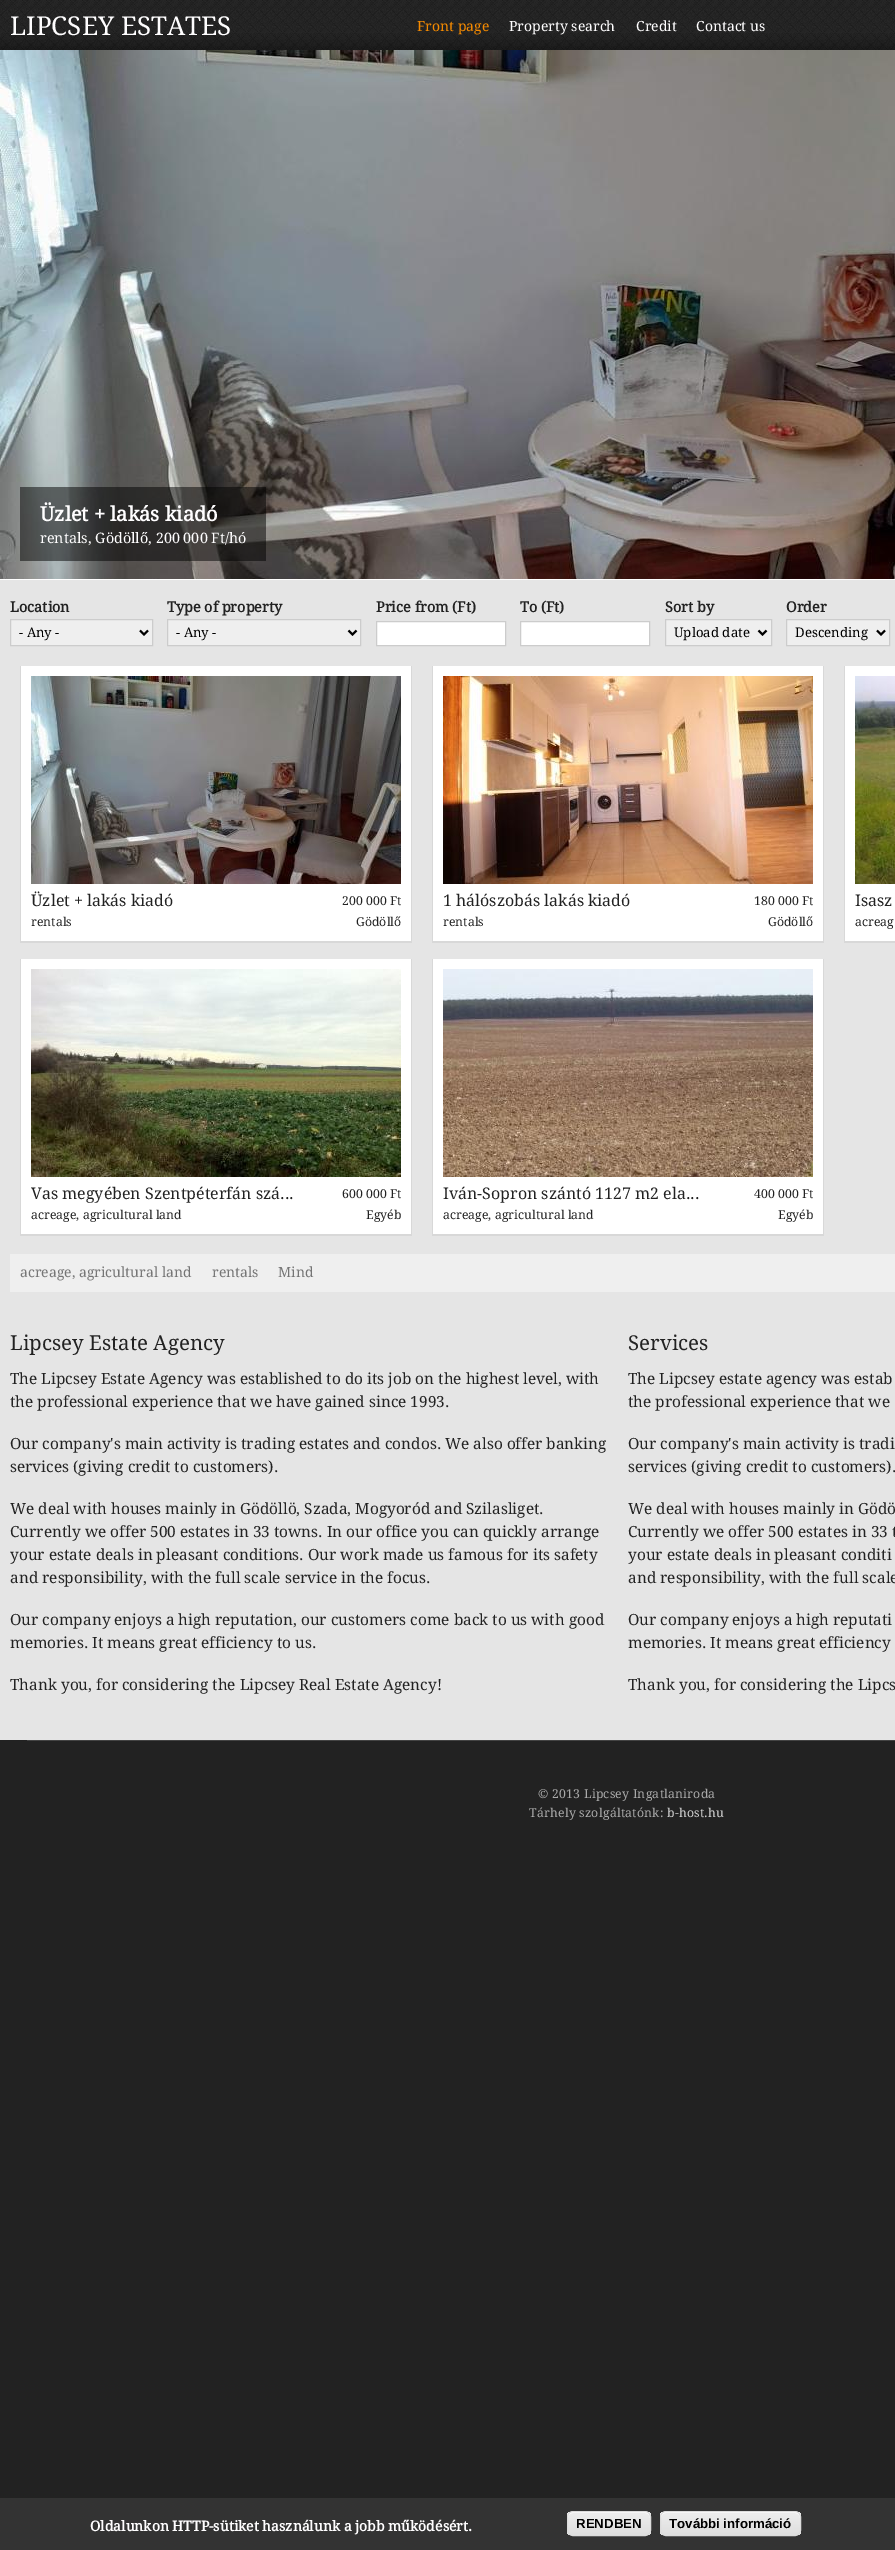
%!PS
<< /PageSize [895 2550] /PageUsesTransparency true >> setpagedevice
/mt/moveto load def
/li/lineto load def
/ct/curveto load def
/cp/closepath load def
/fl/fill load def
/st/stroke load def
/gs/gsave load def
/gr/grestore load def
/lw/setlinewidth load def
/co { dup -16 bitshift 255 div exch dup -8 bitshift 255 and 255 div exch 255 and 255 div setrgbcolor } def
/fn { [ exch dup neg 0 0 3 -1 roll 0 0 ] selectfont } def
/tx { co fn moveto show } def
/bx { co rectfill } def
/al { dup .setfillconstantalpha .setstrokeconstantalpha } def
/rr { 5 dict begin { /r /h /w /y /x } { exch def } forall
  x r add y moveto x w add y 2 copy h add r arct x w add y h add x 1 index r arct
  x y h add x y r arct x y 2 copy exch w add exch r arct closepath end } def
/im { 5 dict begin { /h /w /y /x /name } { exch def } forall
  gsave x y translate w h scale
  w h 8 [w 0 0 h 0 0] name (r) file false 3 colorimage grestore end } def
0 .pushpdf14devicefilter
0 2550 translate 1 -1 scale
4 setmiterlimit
0 0 895 2550 16#222222 bx
0 580 895 1160 16#E5E5E5 bx
(media/1.raw) 0 0 895 50 im
0 579 895 1 16#FFFFFF bx
(media/2.raw) 0 50 895 529 im
0.5 al
20 487 246 74 16#000000 bx
1 al
16#EFEFEF co
10.5 619.5 mt 152.5 619.5 li 152.5 645.5 li 10.5 645.5 li cp gs fl gr
16#CCCCCC co
st
16#000000 co
2 lw
140 630.5 mt 144 634.5 li 148 630.5 li st
16#EFEFEF co
167.5 619.5 mt 360.5 619.5 li 360.5 645.5 li 167.5 645.5 li cp gs fl gr
16#CCCCCC co
1 lw
st
16#000000 co
2 lw
348.5 630.5 mt 352.5 634.5 li 356.5 630.5 li st
16#FFFFFF co
376.5 621.5 mt 505.5 621.5 li 505.5 645.5 li 376.5 645.5 li cp gs fl gr
16#CCCCCC co
1 lw
st
16#FFFFFF co
520.5 621.5 mt 649.5 621.5 li 649.5 645.5 li 520.5 645.5 li cp gs fl gr
16#CCCCCC co
st
16#EFEFEF co
665.5 619.5 mt 771.5 619.5 li 771.5 645.5 li 665.5 645.5 li cp gs fl gr
16#CCCCCC co
st
16#000000 co
2 lw
758.5 630.5 mt 762.5 634.5 li 766.5 630.5 li st
16#EFEFEF co
786.5 619.5 mt 889.5 619.5 li 889.5 645.5 li 786.5 645.5 li cp gs fl gr
16#CCCCCC co
1 lw
st
16#000000 co
2 lw
877 630.5 mt 881 634.5 li 885 630.5 li st
21 666 390 275 16#FFFFFF bx
411 666 1 277 16#D8D8D8 bx
20 941 392 2 16#D8D8D8 bx
20 666 1 277 16#D8D8D8 bx
(media/3.raw) 31 676 370 208 im
433 666 390 275 16#FFFFFF bx
823 666 1 277 16#D8D8D8 bx
432 941 392 2 16#D8D8D8 bx
432 666 1 277 16#D8D8D8 bx
(media/4.raw) 443 676 370 208 im
845 666 50 275 16#FFFFFF bx
844 941 51 2 16#D8D8D8 bx
844 666 1 277 16#D8D8D8 bx
(media/5.raw) 855 676 40 208 im
21 959 390 275 16#FFFFFF bx
411 959 1 277 16#D8D8D8 bx
20 1234 392 2 16#D8D8D8 bx
20 959 1 277 16#D8D8D8 bx
(media/6.raw) 31 969 370 208 im
433 959 390 275 16#FFFFFF bx
823 959 1 277 16#D8D8D8 bx
432 1234 392 2 16#D8D8D8 bx
432 959 1 277 16#D8D8D8 bx
(media/7.raw) 443 969 370 208 im
10 1254 885 38 16#EFEFEF bx
27 1740 868 1 16#434343 bx
0 2498 895 52 16#333333 bx
gs
567 2511 84 25 6 rr clip newpath
gs 567 2512 mt 651 2512 li 651 2535 li 567 2535 li cp clip newpath
<< /ShadingType 2 /ColorSpace /DeviceRGB /Coords [609 2512 609 2535] /Extend [true true] /Function << /FunctionType 3 /Domain [0 1] /Functions [<< /FunctionType 2 /Domain [0 1] /C0 [.929 .929 .929] /C1 [.929 .929 .929] /N 1 >> << /FunctionType 2 /Domain [0 1] /C0 [.929 .929 .929] /C1 [.875 .875 .875] /N 1 >>] /Bounds [.05] /Encode [0 1 0 1] >> >> shfill gr
gr
16#FFFFFF co
573 2513 mt 645 2513 li 648 2513 650 2515 650 2518 ct 650 2509 639 2512 633 2512 ct 585 2512 li 579 2512 568 2509 568 2518 ct 568 2515 570 2513 573 2513 ct cp fl
16#DCDCDC co
1 lw
567.5 2511.5 83 24 5.5 rr st
gs
660 2511 141 25 6 rr clip newpath
gs 660 2512 mt 801 2512 li 801 2535 li 660 2535 li cp clip newpath
<< /ShadingType 2 /ColorSpace /DeviceRGB /Coords [731 2512 731 2535] /Extend [true true] /Function << /FunctionType 3 /Domain [0 1] /Functions [<< /FunctionType 2 /Domain [0 1] /C0 [.929 .929 .929] /C1 [.929 .929 .929] /N 1 >> << /FunctionType 2 /Domain [0 1] /C0 [.929 .929 .929] /C1 [.875 .875 .875] /N 1 >>] /Bounds [.05] /Encode [0 1 0 1] >> >> shfill gr
gr
16#FFFFFF co
666 2513 mt 795 2513 li 798 2513 800 2515 800 2518 ct 800 2517 li 800 2514 798 2512 795 2512 ct 666 2512 li 663 2512 661 2514 661 2517 ct 661 2518 li 661 2515 663 2513 666 2513 ct cp fl
16#DCDCDC co
660.5 2511.5 140 24 5.5 rr st
(LIPCSEY ESTATES) 10 35 /DroidSerif-Regular 26 16#FFFEFF tx
(Front page) 417 31 /DroidSerif-Regular 14 16#F58A00 tx
(Property search) 509 31 /DroidSerif-Regular 14 16#FFFEFF tx
(Credit) 636 31 /DroidSerif-Regular 14 16#FFFEFF tx
(Contact us) 696 31 /DroidSerif-Regular 14 16#FFFEFF tx
(Üzlet + lakás kiadó) 40 521 /DroidSerif-Bold 20 16#FFFEFF tx
(rentals, Gödöllő, 200 000 Ft/hó) 40 543 /DroidSerif-Regular 14.4 16#FFFEFF tx
(Location) 10 612 /DroidSerif-Bold 14.4 16#222222 tx
(- Any -) 19 637 /DroidSerif-Regular 13.25 16#000000 tx
(Type of property) 167 612 /DroidSerif-Bold 14.4 16#222222 tx
(- Any -) 176 637 /DroidSerif-Regular 13.25 16#000000 tx
(Price from \(Ft\)) 376 612 /DroidSerif-Bold 14.4 16#222222 tx
(To \(Ft\)) 520 612 /DroidSerif-Bold 14.4 16#222222 tx
(Sort by) 665 612 /DroidSerif-Bold 14.4 16#222222 tx
(Upload date) 674 637 /DroidSerif-Regular 13.25 16#000000 tx
(Order) 786 612 /DroidSerif-Bold 14.4 16#222222 tx
(Descending) 795 637 /DroidSerif-Regular 13.25 16#000000 tx
(Üzlet + lakás kiadó) 31 906 /DroidSerif-Regular 16 16#222222 tx
(200 000 Ft) 342 905 /DroidSerif-Regular 12.3 16#222222 tx
(rentals) 31 926 /DroidSerif-Regular 12.3 16#222222 tx
(Gödöllő) 356 926 /DroidSerif-Regular 12.3 16#222222 tx
(1 hálószobás lakás kiadó) 443 906 /DroidSerif-Regular 16 16#222222 tx
(180 000 Ft) 754 905 /DroidSerif-Regular 12.3 16#222222 tx
(rentals) 443 926 /DroidSerif-Regular 12.3 16#222222 tx
(Gödöllő) 768 926 /DroidSerif-Regular 12.3 16#222222 tx
(Isasz) 855 906 /DroidSerif-Regular 16 16#222222 tx
(acreag) 855 926 /DroidSerif-Regular 12.3 16#222222 tx
(Vas megyében Szentpéterfán szá...) 31 1199 /DroidSerif-Regular 16 16#222222 tx
(600 000 Ft) 342 1198 /DroidSerif-Regular 12.3 16#222222 tx
(acreage, agricultural land) 31 1219 /DroidSerif-Regular 12.3 16#222222 tx
(Egyéb) 366 1219 /DroidSerif-Regular 12.3 16#222222 tx
(Iván-Sopron szántó 1127 m2 ela...) 443 1199 /DroidSerif-Regular 16 16#222222 tx
(400 000 Ft) 754 1198 /DroidSerif-Regular 12.3 16#222222 tx
(acreage, agricultural land) 443 1219 /DroidSerif-Regular 12.3 16#222222 tx
(Egyéb) 778 1219 /DroidSerif-Regular 12.3 16#222222 tx
(acreage, agricultural land) 20 1277 /DroidSerif-Regular 14 16#757575 tx
(rentals) 212 1277 /DroidSerif-Regular 14 16#757575 tx
(Mind) 278 1277 /DroidSerif-Regular 14 16#757575 tx
(Lipcsey Estate Agency) 10 1350 /DroidSerif-Regular 20.5 16#222222 tx
(The Lipcsey Estate Agency was established to do its job on the highest level, with) 10 1384 /DroidSerif-Regular 15.4 16#222222 tx
(the professional experience that we have gained since 1993.) 10 1407 /DroidSerif-Regular 15.4 16#222222 tx
(Our company's main activity is trading estates and condos. We also offer banking) 10 1449 /DroidSerif-Regular 15.4 16#222222 tx
(services \(giving credit to customers\).) 10 1472 /DroidSerif-Regular 15.4 16#222222 tx
(We deal with houses mainly in Gödöllö, Szada, Mogyoród and Szilasliget.) 10 1514 /DroidSerif-Regular 15.4 16#222222 tx
(Currently we offer 500 estates in 33 towns. In our office you can quickly arrange) 10 1537 /DroidSerif-Regular 15.4 16#222222 tx
(your estate deals in pleasant conditions. Our work made us famous for its safety) 10 1560 /DroidSerif-Regular 15.4 16#222222 tx
(and responsibility, with the full scale service in the focus.) 10 1583 /DroidSerif-Regular 15.4 16#222222 tx
(Our company enjoys a high reputation, our customers come back to us with good) 10 1625 /DroidSerif-Regular 15.4 16#222222 tx
(memories. It means great efficiency to us.) 10 1648 /DroidSerif-Regular 15.4 16#222222 tx
(Thank you, for considering the Lipcsey Real Estate Agency!) 10 1690 /DroidSerif-Regular 15.4 16#222222 tx
(Services) 628 1350 /DroidSerif-Regular 20.5 16#222222 tx
(The Lipcsey estate agency was estab) 628 1384 /DroidSerif-Regular 15.4 16#222222 tx
(the professional experience that we) 628 1407 /DroidSerif-Regular 15.4 16#222222 tx
(Our company's main activity is tradi) 628 1449 /DroidSerif-Regular 15.4 16#222222 tx
(services \(giving credit to customers\).) 628 1472 /DroidSerif-Regular 15.4 16#222222 tx
(We deal with houses mainly in Gödö) 628 1514 /DroidSerif-Regular 15.4 16#222222 tx
(Currently we offer 500 estates in 33 t) 628 1537 /DroidSerif-Regular 15.4 16#222222 tx
(your estate deals in pleasant conditi) 628 1560 /DroidSerif-Regular 15.4 16#222222 tx
(and responsibility, with the full scale) 628 1583 /DroidSerif-Regular 15.4 16#222222 tx
(Our company enjoys a high reputati) 628 1625 /DroidSerif-Regular 15.4 16#222222 tx
(memories. It means great efficiency) 628 1648 /DroidSerif-Regular 15.4 16#222222 tx
(Thank you, for considering the Lipcs) 628 1690 /DroidSerif-Regular 15.4 16#222222 tx
/DroidSerif-Regular 12.3 fn
16#AAAAAA co
538 1798 mt .2 0 (© 2013 Lipcsey Ingatlaniroda) ashow
529 1817 mt .2 0 (Tárhely szolgáltatónk:) ashow
16#D3D3D3 co
667 1817 mt .2 0 (b-host.hu) ashow
(Oldalunkon HTTP-sütiket használunk a jobb működésért.) 90 2531 /DroidSerif-Bold 14 16#FFFEFF tx
(RENDBEN) 576 2528 /LiberationSans-Bold 13.25 16#000000 tx
(További információ) 669 2528 /LiberationSans-Bold 13.25 16#000000 tx
.poppdf14devicefilter showpage
